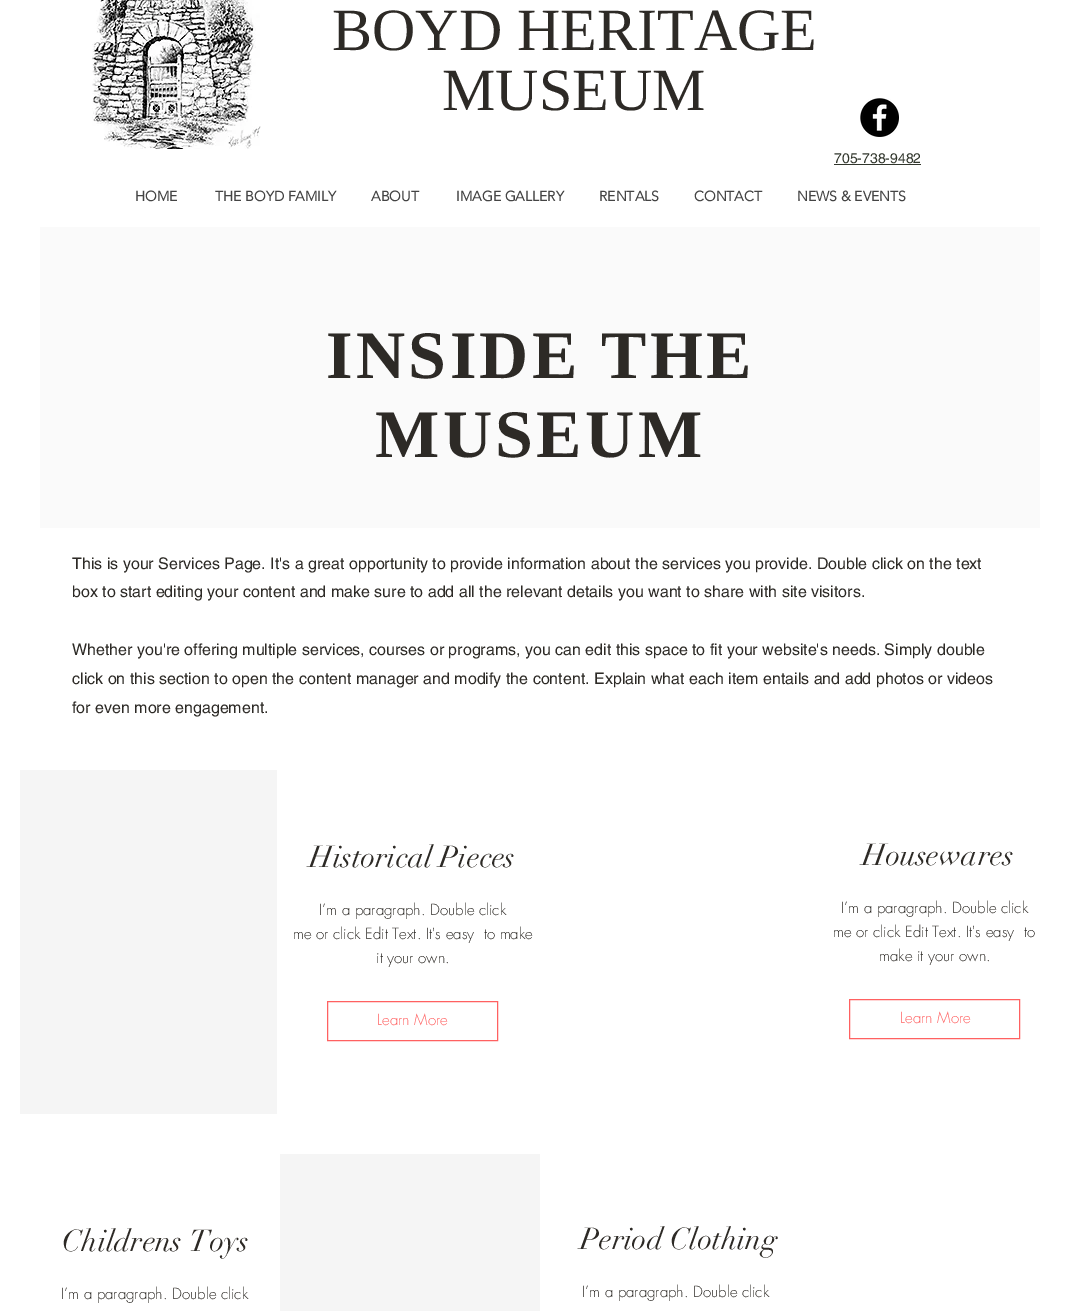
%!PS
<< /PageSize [1080 1311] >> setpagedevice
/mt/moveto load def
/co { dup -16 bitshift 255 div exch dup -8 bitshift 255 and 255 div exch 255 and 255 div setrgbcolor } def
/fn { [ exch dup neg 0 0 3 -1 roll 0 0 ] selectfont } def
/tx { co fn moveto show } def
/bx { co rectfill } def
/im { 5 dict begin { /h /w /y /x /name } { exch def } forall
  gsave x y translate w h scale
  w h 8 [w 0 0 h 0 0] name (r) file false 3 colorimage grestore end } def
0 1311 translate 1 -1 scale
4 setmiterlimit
0 0 1080 1311 16#FFFFFF bx
(media/1.raw) 92 0 169 149 im
(media/2.raw) 860 98 39 39 im
834 164 87 1 16#31362C bx
40 227 1000 301 16#FAFAFA bx
20 770 257 344 16#F5F5F5 bx
16#FF6161 co
327.5 1001.5 170 39 rectstroke
849.5 999.5 170 39 rectstroke
280 1154 260 157 16#F5F5F5 bx
(BOYD HERITAGE) 332 50 /LiberationSerif-Regular 60 16#2D2A26 tx
(MUSEUM) 442 110 /LiberationSerif-Regular 60 16#2D2A26 tx
(705-738-9482) 834 163 /helvetica-Regular 14 16#31362C tx
(HOME) 135 201 /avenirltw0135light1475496-Bold 14 16#444444 tx
(THE BOYD FAMILY) 215 201 /avenirltw0135light1475496-Bold 14 16#444444 tx
(ABOUT) 371 201 /avenirltw0135light1475496-Bold 14 16#444444 tx
(IMAGE GALLERY) 456 201 /avenirltw0135light1475496-Bold 14 16#444444 tx
(RENTALS) 599 201 /avenirltw0135light1475496-Bold 14 16#444444 tx
(CONTACT) 694 201 /avenirltw0135light1475496-Bold 14 16#444444 tx
(NEWS & EVENTS) 797 201 /avenirltw0135light1475496-Bold 14 16#444444 tx
/LiberationSerif-Bold 68 fn
16#2D2A26 co
326 378 mt 3.4 0 (INSIDE THE) ashow
375 457 mt 3.4 0 (MUSEUM) ashow
(This is your Services Page. It's a great opportunity to provide information about the services you provide. Double click on the text) 72 569 /helvetica-Regular 16 16#2D2A26 tx
(box to start editing your content and make sure to add all the relevant details you want to share with site visitors.) 72 597 /helvetica-Regular 16 16#2D2A26 tx
(Whether you're offering multiple services, courses or programs, you can edit this space to fit your website's needs. Simply double) 72 655 /helvetica-Regular 16 16#2D2A26 tx
(click on this section to open the content manager and modify the content. Explain what each item entails and add photos or videos) 72 684 /helvetica-Regular 16 16#2D2A26 tx
(for even more engagement.) 72 713 /helvetica-Regular 16 16#2D2A26 tx
(Historical Pieces) 309 867 /didot-Regular 30 16#2D2A26 tx
(I’m a paragraph. Double click) 319 915 /futura-Light 15 16#2D2A26 tx
(me or click Edit Text. It's easy  to make) 293 939 /futura-Light 15 16#2D2A26 tx
(it your own.) 376 963 /futura-Light 15 16#2D2A26 tx
(Learn More) 377 1025 /futura-Light 15 16#FF6161 tx
(Housewares) 862 865 /didot-Regular 30 16#2D2A26 tx
(I’m a paragraph. Double click) 841 913 /futura-Light 15 16#2D2A26 tx
(me or click Edit Text. It's easy  to) 833 937 /futura-Light 15 16#2D2A26 tx
(make it your own.) 879 961 /futura-Light 15 16#2D2A26 tx
(Learn More) 900 1023 /futura-Light 15 16#FF6161 tx
(Childrens Toys) 62 1251 /didot-Regular 30 16#2D2A26 tx
(I’m a paragraph. Double click) 61 1299 /futura-Light 15 16#2D2A26 tx
(Period Clothing) 580 1249 /didot-Regular 30 16#2D2A26 tx
(I’m a paragraph. Double click) 582 1297 /futura-Light 15 16#2D2A26 tx
showpage
